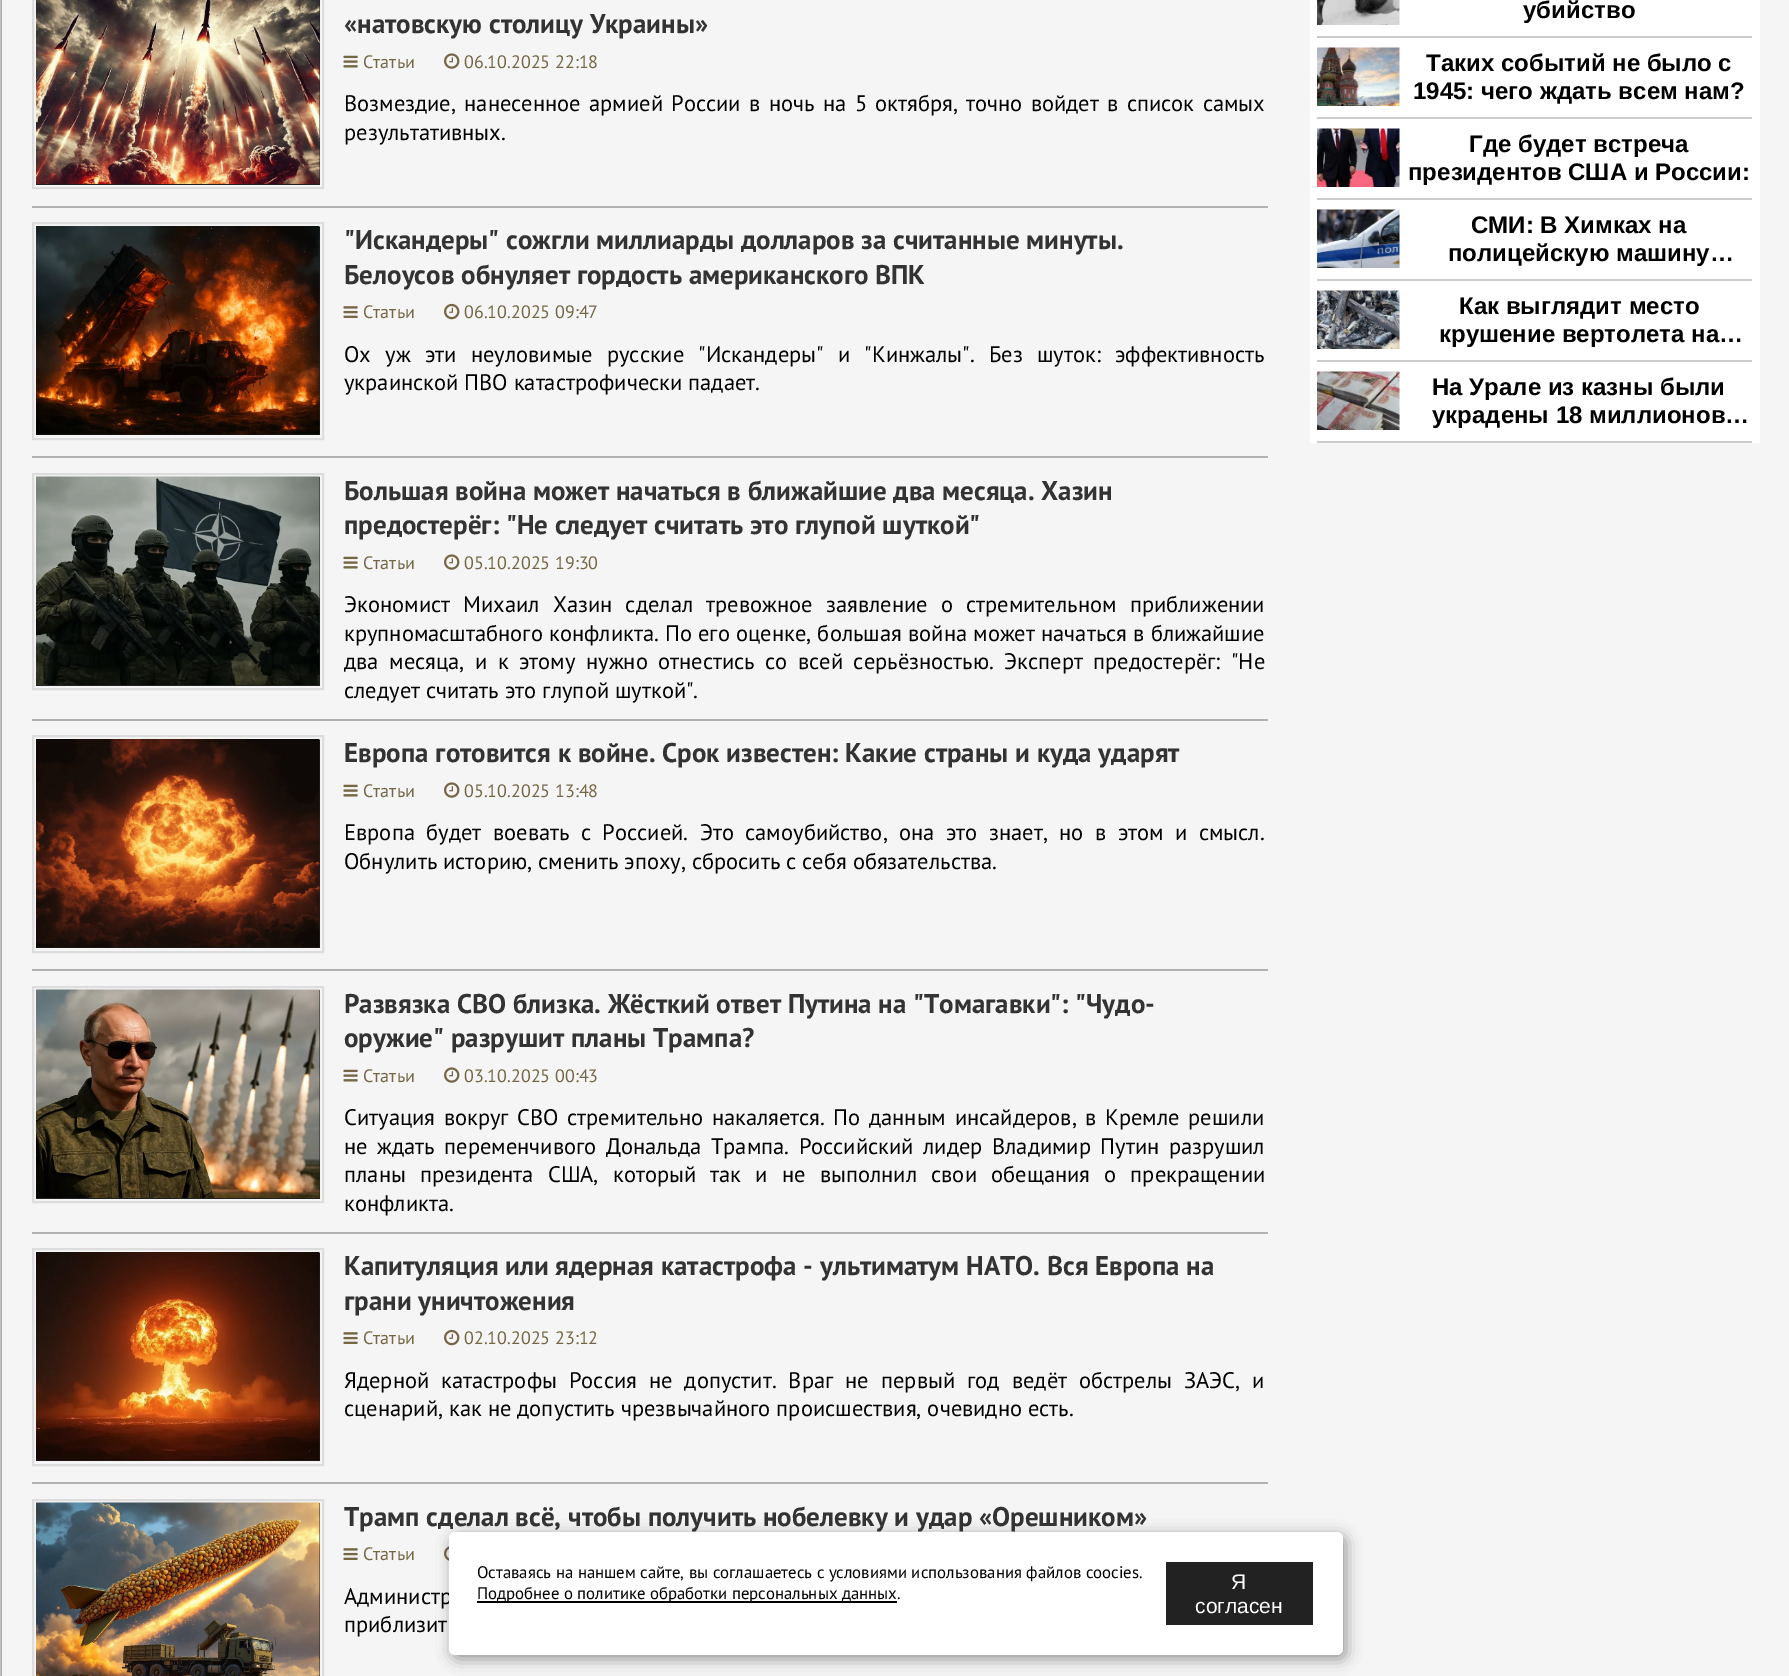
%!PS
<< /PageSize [1789 1676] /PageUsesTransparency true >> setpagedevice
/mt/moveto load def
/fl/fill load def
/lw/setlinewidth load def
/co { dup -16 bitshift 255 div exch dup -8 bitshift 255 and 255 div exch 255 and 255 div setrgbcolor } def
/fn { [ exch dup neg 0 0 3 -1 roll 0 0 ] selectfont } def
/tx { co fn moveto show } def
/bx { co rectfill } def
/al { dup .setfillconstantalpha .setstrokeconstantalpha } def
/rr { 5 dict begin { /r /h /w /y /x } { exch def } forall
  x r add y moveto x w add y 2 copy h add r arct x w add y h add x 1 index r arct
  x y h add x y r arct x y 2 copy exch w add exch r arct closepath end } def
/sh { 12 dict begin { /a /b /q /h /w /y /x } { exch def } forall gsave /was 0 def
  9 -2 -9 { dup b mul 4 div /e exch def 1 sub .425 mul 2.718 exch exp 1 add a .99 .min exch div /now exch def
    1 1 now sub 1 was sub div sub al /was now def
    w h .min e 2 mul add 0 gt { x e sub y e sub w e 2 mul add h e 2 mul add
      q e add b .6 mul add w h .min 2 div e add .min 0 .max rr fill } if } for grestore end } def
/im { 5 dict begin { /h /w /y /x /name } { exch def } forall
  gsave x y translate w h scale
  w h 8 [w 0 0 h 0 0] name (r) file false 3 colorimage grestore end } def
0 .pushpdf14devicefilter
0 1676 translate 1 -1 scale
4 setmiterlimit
0 0 1789 1676 16#E6E5E5 bx
16#666666 co
2 -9 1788 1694 0 3 1 sh
2 0 1787 1676 16#F5F5F5 bx
32 206 1236 2 16#B1B1B1 bx
16#DDDDDD co
2 lw
33 -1 290 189 rectstroke
36 0 284 185 16#222222 bx
(media/1.raw) 36 0 284 184 im
(media/2.raw) 343 55 15 13 im
(media/3.raw) 444 53 16 16 im
32 456 1236 2 16#B1B1B1 bx
16#DDDDDD co
33 223 290 216 rectstroke
36 227 284 208 16#222222 bx
(media/4.raw) 36 226 284 209 im
(media/5.raw) 343 306 15 12 im
(media/6.raw) 444 303 16 17 im
32 719 1236 2 16#B1B1B1 bx
16#DDDDDD co
33 474 290 215 rectstroke
36 477 284 209 16#222222 bx
(media/7.raw) 36 476 284 209 im
(media/2.raw) 343 556 15 13 im
(media/3.raw) 444 554 16 16 im
32 969 1236 2 16#B1B1B1 bx
16#DDDDDD co
33 736 290 216 rectstroke
36 740 284 208 16#222222 bx
(media/8.raw) 36 739 284 209 im
(media/2.raw) 343 784 15 13 im
(media/3.raw) 444 782 16 16 im
32 1232 1236 2 16#B1B1B1 bx
16#DDDDDD co
33 987 290 215 rectstroke
36 990 284 209 16#222222 bx
(media/9.raw) 36 989 284 209 im
(media/2.raw) 343 1069 15 13 im
(media/3.raw) 444 1067 16 16 im
32 1482 1236 2 16#B1B1B1 bx
16#DDDDDD co
33 1249 290 216 rectstroke
36 1253 284 208 16#222222 bx
(media/10.raw) 36 1252 284 209 im
(media/5.raw) 343 1332 15 12 im
(media/6.raw) 444 1329 16 17 im
16#DDDDDD co
33 1500 290 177 rectstroke
319 1503 1 173 16#222222 bx
(media/11.raw) 36 1502 284 174 im
(media/5.raw) 343 1548 15 12 im
(media/12.raw) 444 1546 5 15 im
1310 0 450 443 16#FFFFFF bx
1317 36 435 2 16#CCCCCC bx
(media/13.raw) 1317 0 83 25 im
1317 117 435 2 16#CCCCCC bx
(media/14.raw) 1317 47 83 59 im
1317 198 435 2 16#CCCCCC bx
(media/15.raw) 1317 128 83 59 im
1317 279 435 2 16#CCCCCC bx
(media/16.raw) 1317 209 83 59 im
1317 360 435 2 16#CCCCCC bx
(media/17.raw) 1317 290 83 59 im
1317 441 435 2 16#CCCCCC bx
(media/18.raw) 1317 371 83 59 im
16#000000 co
452 1536 894 123 6 7.5 .4 sh
(«натовскую столицу Украины») 344 33 /PTSans-Bold 27 16#333333 tx
(Статьи) 363 68 /PTSans-Regular 18 16#756746 tx
(06.10.2025 22:18) 464 68 /PTSans-Regular 18 16#756746 tx
/PTSans-Regular 22.5 fn
16#000000 co
344 111 mt 2.4 0 32 (Возмездие, нанесенное армией России в ночь на 5 октября, точно войдет в список самых) widthshow
(результативных.) 344 140 /PTSans-Regular 22.5 16#000000 tx
("Искандеры" сожгли миллиарды долларов за считанные минуты.) 344 249 /PTSans-Bold 27 16#333333 tx
(Белоусов обнуляет гордость американского ВПК) 344 284 /PTSans-Bold 27 16#333333 tx
(Статьи) 363 318 /PTSans-Regular 18 16#756746 tx
(06.10.2025 09:47) 464 318 /PTSans-Regular 18 16#756746 tx
/PTSans-Regular 22.5 fn
16#000000 co
344 362 mt 8.25 0 32 (Ох уж эти неуловимые русские "Искандеры" и "Кинжалы". Без шуток: эффективность) widthshow
(украинской ПВО катастрофически падает.) 344 390 /PTSans-Regular 22.5 16#000000 tx
(Большая война может начаться в ближайшие два месяца. Хазин) 344 500 /PTSans-Bold 27 16#333333 tx
(предостерёг: "Не следует считать это глупой шуткой") 344 534 /PTSans-Bold 27 16#333333 tx
(Статьи) 363 569 /PTSans-Regular 18 16#756746 tx
(05.10.2025 19:30) 464 569 /PTSans-Regular 18 16#756746 tx
/PTSans-Regular 22.5 fn
16#000000 co
344 612 mt 7.25 0 32 (Экономист Михаил Хазин сделал тревожное заявление о стремительном приближении) widthshow
344 641 mt .25 0 32 (крупномасштабного конфликта. По его оценке, большая война может начаться в ближайшие) widthshow
344 669 mt 4.5 0 32 (два месяца, и к этому нужно отнестись со всей серьёзностью. Эксперт предостерёг: "Не) widthshow
(следует считать это глупой шуткой".) 344 698 /PTSans-Regular 22.5 16#000000 tx
(Европа готовится к войне. Срок известен: Какие страны и куда ударят) 344 762 /PTSans-Bold 27 16#333333 tx
(Статьи) 363 797 /PTSans-Regular 18 16#756746 tx
(05.10.2025 13:48) 464 797 /PTSans-Regular 18 16#756746 tx
/PTSans-Regular 22.5 fn
16#000000 co
344 840 mt 5.5 0 32 (Европа будет воевать с Россией. Это самоубийство, она это знает, но в этом и смысл.) widthshow
(Обнулить историю, сменить эпоху, сбросить с себя обязательства.) 344 869 /PTSans-Regular 22.5 16#000000 tx
(Развязка СВО близка. Жёсткий ответ Путина на "Томагавки": "Чудо-) 344 1013 /PTSans-Bold 27 16#333333 tx
(оружие" разрушит планы Трампа?) 344 1047 /PTSans-Bold 27 16#333333 tx
(Статьи) 363 1082 /PTSans-Regular 18 16#756746 tx
(03.10.2025 00:43) 464 1082 /PTSans-Regular 18 16#756746 tx
/PTSans-Regular 22.5 fn
16#000000 co
344 1125 mt 2.6 0 32 (Ситуация вокруг СВО стремительно накаляется. По данным инсайдеров, в Кремле решили) widthshow
344 1154 mt 3.5 0 32 (не ждать переменчивого Дональда Трампа. Российский лидер Владимир Путин разрушил) widthshow
344 1182 mt 8.25 0 32 (планы президента США, который так и не выполнил свои обещания о прекращении) widthshow
(конфликта.) 344 1211 /PTSans-Regular 22.5 16#000000 tx
(Капитуляция или ядерная катастрофа - ультиматум НАТО. Вся Европа на) 344 1275 /PTSans-Bold 27 16#333333 tx
(грани уничтожения) 344 1310 /PTSans-Bold 27 16#333333 tx
(Статьи) 363 1344 /PTSans-Regular 18 16#756746 tx
(02.10.2025 23:12) 464 1344 /PTSans-Regular 18 16#756746 tx
/PTSans-Regular 22.5 fn
16#000000 co
344 1388 mt 6.1 0 32 (Ядерной катастрофы Россия не допустит. Враг не первый год ведёт обстрелы ЗАЭС, и) widthshow
(сценарий, как не допустить чрезвычайного происшествия, очевидно есть.) 344 1416 /PTSans-Regular 22.5 16#000000 tx
(Трамп сделал всё, чтобы получить нобелевку и удар «Орешником») 344 1526 /PTSans-Bold 27 16#333333 tx
(Статьи) 363 1560 /PTSans-Regular 18 16#756746 tx
/PTSans-Regular 22.5 fn
16#000000 co
344 1604 mt 8 0 32 (Администр) widthshow
(приблизит) 344 1632 /PTSans-Regular 22.5 16#000000 tx
(убийство) 1523 18 /LiberationSans-Bold 24 16#000000 tx
(Таких событий не было с) 1426 71 /LiberationSans-Bold 24 16#000000 tx
(1945: чего ждать всем нам?) 1413 99 /LiberationSans-Bold 24 16#000000 tx
(Где будет встреча) 1469 152 /LiberationSans-Bold 24 16#000000 tx
(президентов США и России:) 1408 180 /LiberationSans-Bold 24 16#000000 tx
(СМИ: В Химках на) 1471 233 /LiberationSans-Bold 24 16#000000 tx
(полицейскую машину…) 1448 261 /LiberationSans-Bold 24 16#000000 tx
(Как выглядит место) 1459 314 /LiberationSans-Bold 24 16#000000 tx
(крушение вертолета на…) 1439 342 /LiberationSans-Bold 24 16#000000 tx
(На Урале из казны были) 1432 395 /LiberationSans-Bold 24 16#000000 tx
(украдены 18 миллионов…) 1432 423 /LiberationSans-Bold 24 16#000000 tx
16#FFFFFF co
449 1532 894 123 6 rr fl
(Оставаясь на наншем сайте, вы соглашаетесь с условиями использования файлов coocies.) 477 1578 /PTSans-Regular 16.8 16#000000 tx
477 1601 420 2 16#000000 bx
(Подробнее о политике обработки персональных данных) 477 1599 /PTSans-Regular 16.8 16#000000 tx
(.) 897 1599 /PTSans-Regular 16.8 16#000000 tx
1166 1562 147 63 16#222222 bx
(Я) 1231 1589 /LiberationSans-Regular 21 16#FFFFFF tx
(согласен) 1195 1613 /LiberationSans-Regular 21 16#FFFFFF tx
.poppdf14devicefilter showpage
